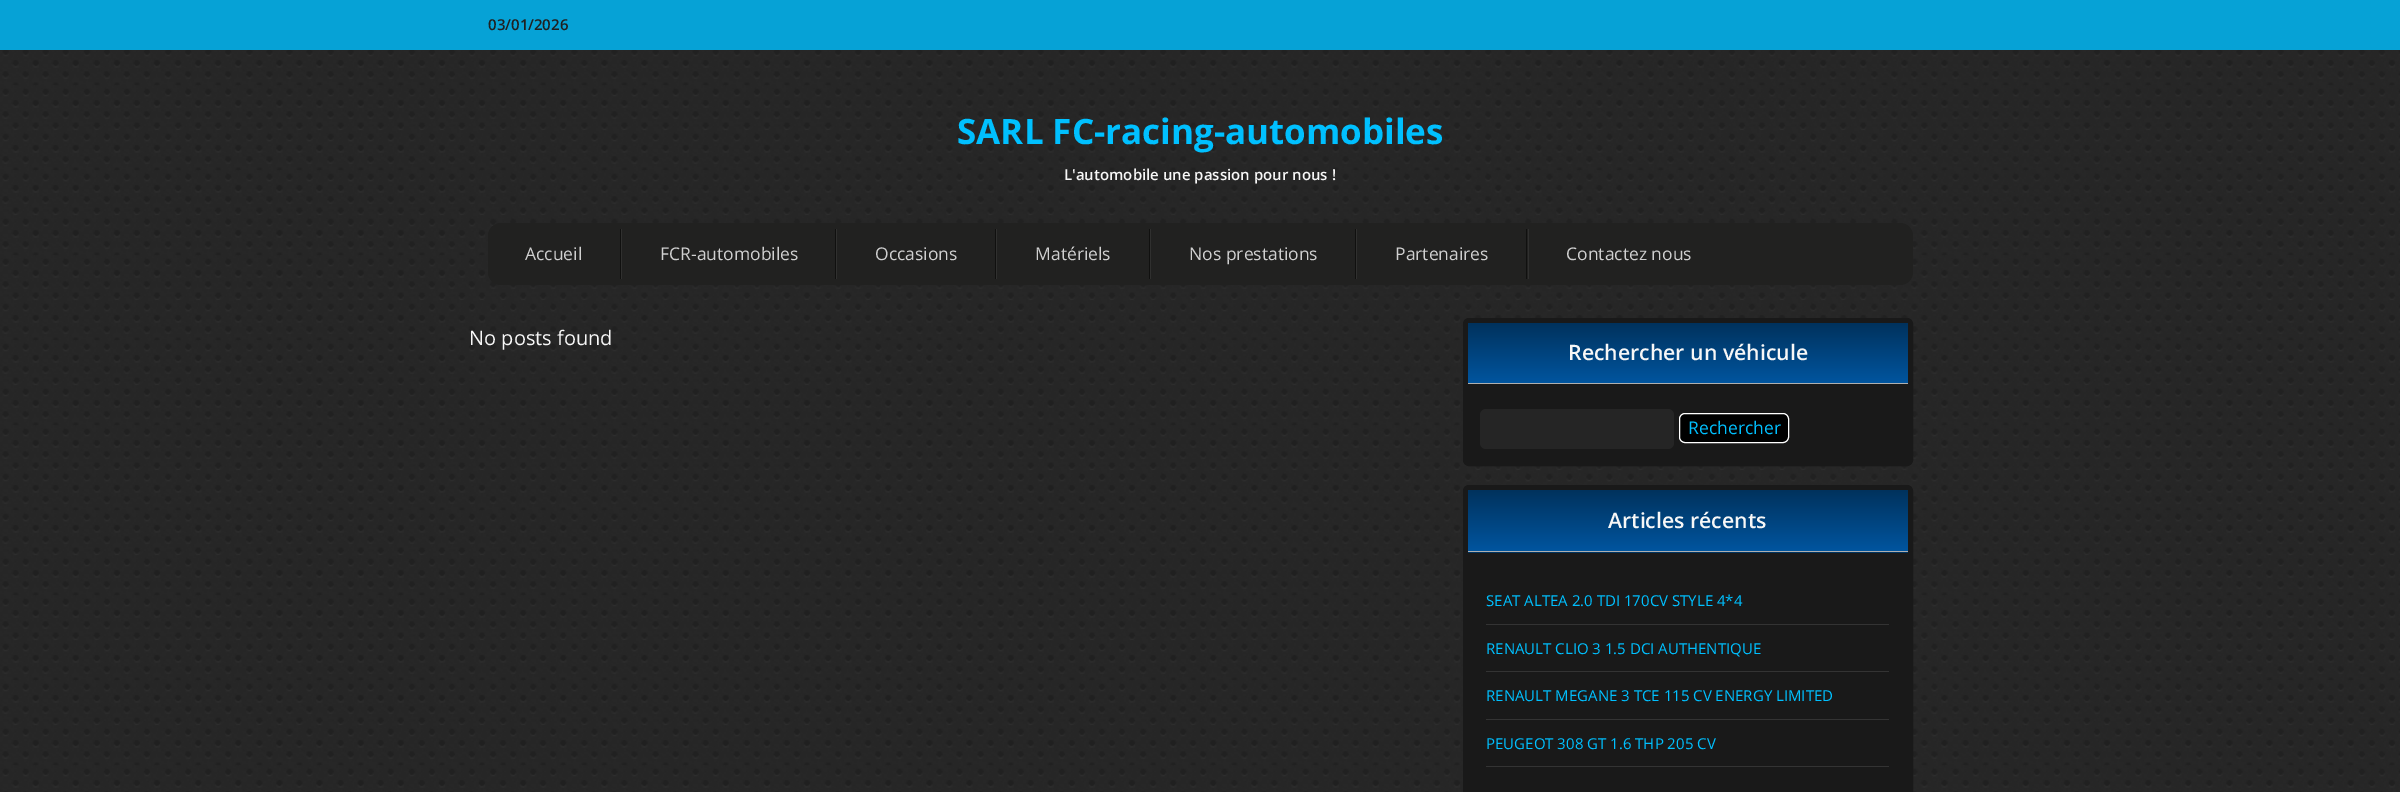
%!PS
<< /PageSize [2400 792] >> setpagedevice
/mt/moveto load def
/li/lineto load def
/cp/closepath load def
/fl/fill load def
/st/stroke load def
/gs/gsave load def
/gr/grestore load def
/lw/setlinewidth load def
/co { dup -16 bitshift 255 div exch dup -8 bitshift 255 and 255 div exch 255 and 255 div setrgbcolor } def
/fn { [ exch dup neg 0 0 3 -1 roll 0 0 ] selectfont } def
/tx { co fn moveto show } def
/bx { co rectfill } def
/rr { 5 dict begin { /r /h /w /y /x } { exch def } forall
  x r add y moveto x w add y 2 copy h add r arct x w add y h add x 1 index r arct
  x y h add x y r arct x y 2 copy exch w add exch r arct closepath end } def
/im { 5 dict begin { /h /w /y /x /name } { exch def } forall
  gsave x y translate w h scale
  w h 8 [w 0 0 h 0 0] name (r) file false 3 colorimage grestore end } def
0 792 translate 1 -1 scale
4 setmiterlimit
0 0 2400 792 16#FFFFFF bx
(media/1.raw) 0 50 2400 742 im
0 0 2400 50 16#06A2D6 bx
16#212120 co
488 223 1425 62 13 rr fl
620 229 1 50 16#10100F bx
835 229 1 50 16#10100F bx
621 229 1 50 16#30302F bx
995 229 1 50 16#10100F bx
836 229 1 50 16#30302F bx
1149 229 1 50 16#10100F bx
996 229 1 50 16#30302F bx
1355 229 1 50 16#10100F bx
1150 229 1 50 16#30302F bx
1526 229 1 50 16#10100F bx
1356 229 1 50 16#30302F bx
1528 229 1 50 16#30302F bx
16#191919 co
1465.5 320.5 445 143 3.5 rr gs fl gr
5 lw
st
gs 1468 323 mt 1908 323 li 1908 383 li 1468 383 li cp clip newpath
<< /ShadingType 2 /ColorSpace /DeviceRGB /Coords [1688 323 1688 383] /Extend [true true] /Function << /FunctionType 2 /Domain [0 1] /C0 [0 .196 .365] /C1 [0 .333 .624] /N 1 >> >> shfill gr
1468 383 440 1 16#AFAFAF bx
16#252525 co
1480 409 194 40 6 rr fl
16#000000 co
1679.5 413.5 109 29 5.5 rr gs fl gr
16#FFFFFF co
1 lw
st
16#191919 co
1465.5 487.5 445 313 3.5 rr gs fl gr
5 lw
st
gs 1468 490 mt 1908 490 li 1908 551 li 1468 551 li cp clip newpath
<< /ShadingType 2 /ColorSpace /DeviceRGB /Coords [1688 490 1688 551] /Extend [true true] /Function << /FunctionType 2 /Domain [0 1] /C0 [0 .196 .365] /C1 [0 .333 .624] /N 1 >> >> shfill gr
gs 1468 552 mt 1908 552 li 1908 553 li 1468 553 li cp clip newpath
<< /ShadingType 2 /ColorSpace /DeviceRGB /Coords [1688 551 1688 613] /Extend [true true] /Function << /FunctionType 2 /Domain [0 1] /C0 [0 .196 .365] /C1 [0 .333 .624] /N 1 >> >> shfill gr
1468 551 440 1 16#AFAFAF bx
1486 624 403 1 16#333333 bx
1486 671 403 1 16#333333 bx
1486 719 403 1 16#333333 bx
1486 766 403 1 16#333333 bx
(03/01/2026) 488 30 /OpenSans-SemiBold 15 16#202020 tx
(SARL FC-racing-automobiles) 957 144 /OpenSans-Bold 35 16#00C0FF tx
(L'automobile une passion pour nous !) 1064 180 /OpenSans-SemiBold 15 16#F7F7F7 tx
(Accueil) 525 260 /OpenSans-Regular 17.5 16#D0D0D0 tx
(FCR-automobiles) 660 260 /OpenSans-Regular 17.5 16#D0D0D0 tx
(Occasions) 875 260 /OpenSans-Regular 17.5 16#D0D0D0 tx
(Matériels) 1035 260 /OpenSans-Regular 17.5 16#D0D0D0 tx
(Nos prestations) 1189 260 /OpenSans-Regular 17.5 16#D0D0D0 tx
(Partenaires) 1395 260 /OpenSans-Regular 17.5 16#D0D0D0 tx
(Contactez nous) 1566 260 /OpenSans-Regular 17.5 16#D0D0D0 tx
(No posts found) 469 345 /OpenSans-Regular 20 16#F7F7F7 tx
(Rechercher un véhicule) 1568 360 /OpenSans-SemiBold 21.25 16#F7F7F7 tx
(Rechercher) 1688 434 /OpenSans-Regular 17.5 16#00C0FF tx
(Articles récents) 1608 528 /OpenSans-SemiBold 21.25 16#F7F7F7 tx
(SEAT ALTEA 2.0 TDI 170CV STYLE 4*4) 1486 606 /OpenSans-Regular 15 16#00C0FF tx
(RENAULT CLIO 3 1.5 DCI AUTHENTIQUE) 1486 654 /OpenSans-Regular 15 16#00C0FF tx
(RENAULT MEGANE 3 TCE 115 CV ENERGY LIMITED) 1486 701 /OpenSans-Regular 15 16#00C0FF tx
(PEUGEOT 308 GT 1.6 THP 205 CV) 1486 749 /OpenSans-Regular 15 16#00C0FF tx
showpage
